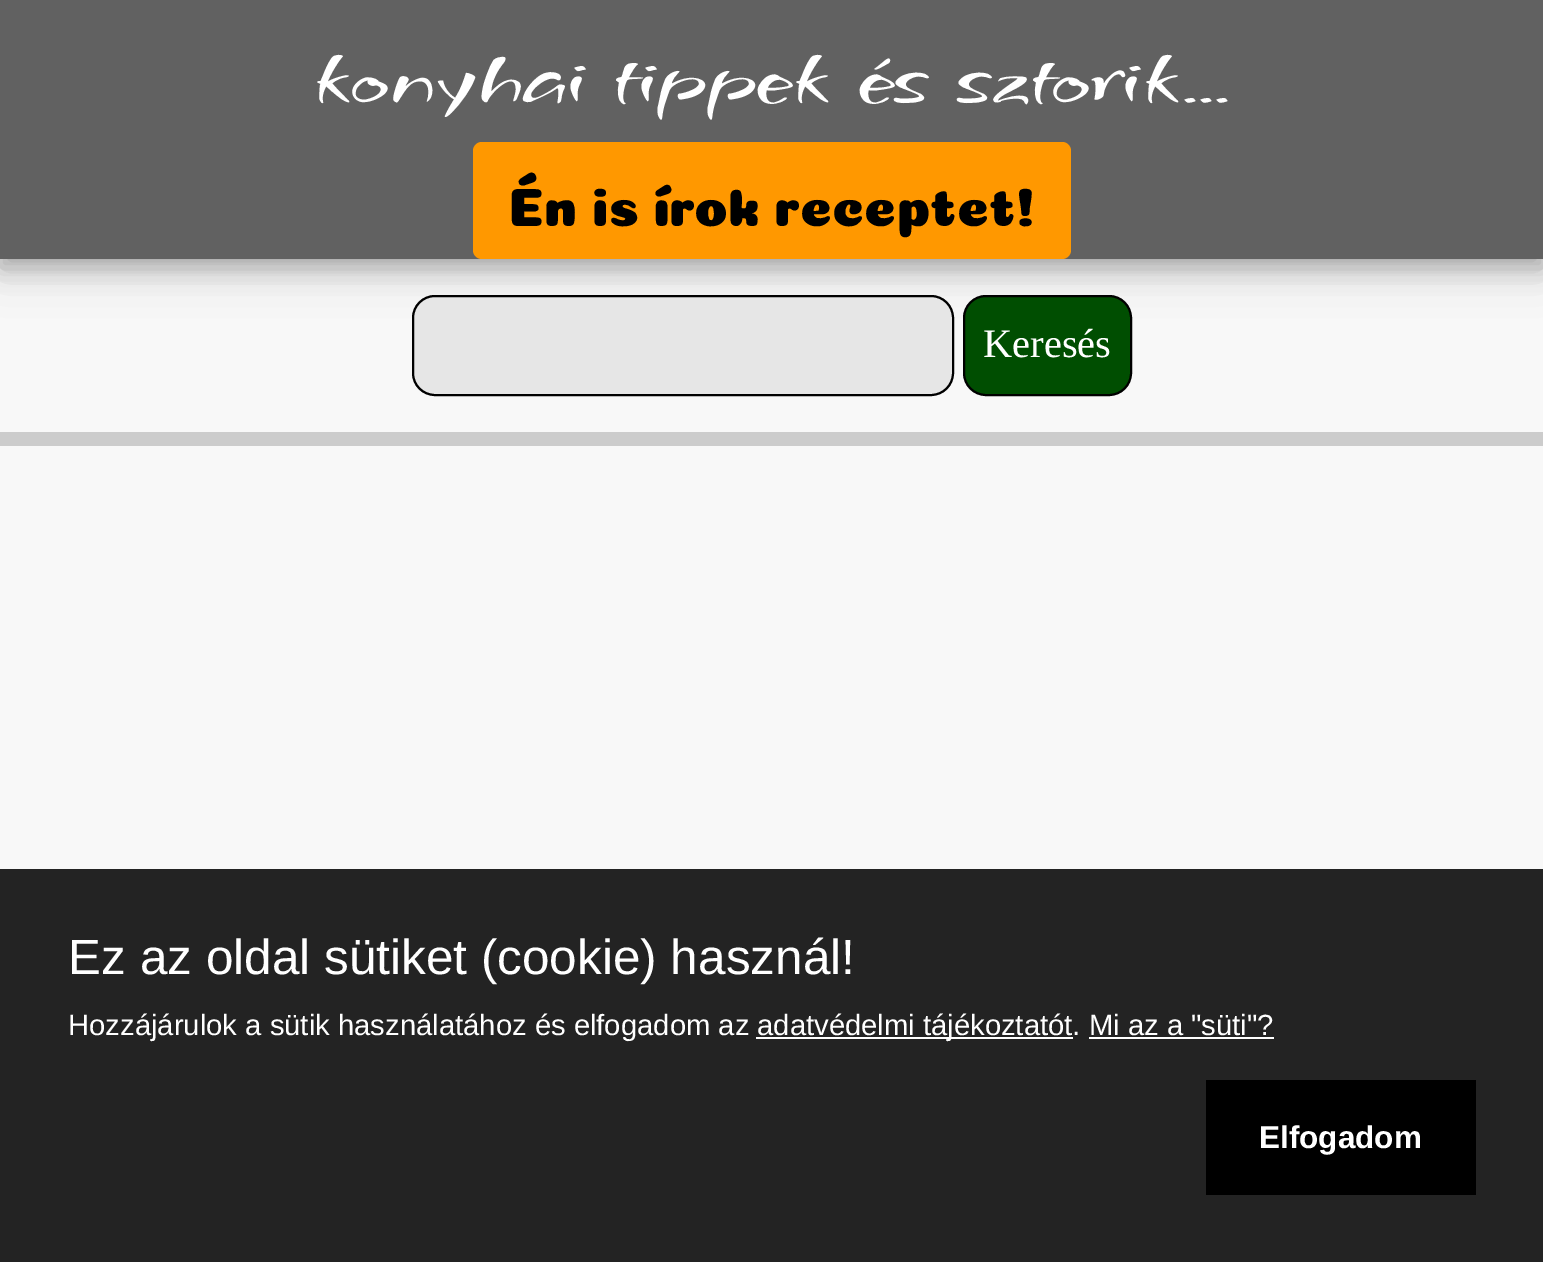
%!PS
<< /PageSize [1543 1262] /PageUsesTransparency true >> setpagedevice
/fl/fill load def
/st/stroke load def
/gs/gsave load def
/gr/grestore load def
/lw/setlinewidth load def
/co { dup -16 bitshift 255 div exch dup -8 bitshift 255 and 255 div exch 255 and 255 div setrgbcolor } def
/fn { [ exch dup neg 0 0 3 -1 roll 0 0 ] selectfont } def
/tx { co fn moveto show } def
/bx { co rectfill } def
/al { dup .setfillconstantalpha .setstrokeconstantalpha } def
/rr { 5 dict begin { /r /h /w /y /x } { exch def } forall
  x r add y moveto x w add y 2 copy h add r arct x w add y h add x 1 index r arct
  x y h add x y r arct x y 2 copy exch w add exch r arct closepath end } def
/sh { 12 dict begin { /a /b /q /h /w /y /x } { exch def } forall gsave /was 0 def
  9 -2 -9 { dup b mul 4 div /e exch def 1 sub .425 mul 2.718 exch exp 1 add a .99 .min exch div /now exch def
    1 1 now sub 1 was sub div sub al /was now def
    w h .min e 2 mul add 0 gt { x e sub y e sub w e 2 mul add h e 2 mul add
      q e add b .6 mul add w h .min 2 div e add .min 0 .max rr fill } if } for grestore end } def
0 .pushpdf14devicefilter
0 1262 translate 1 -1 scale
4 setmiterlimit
0 0 1543 1262 16#F8F8F8 bx
0 432 1543 14 16#CCCCCC bx
16#000000 co
0 -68 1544 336 0 22.5 .19 sh
0 -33 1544 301 0 11 .2 sh
0 0 1543 259 16#616161 bx
16#FF9800 co
473 142 598 117 9 rr fl
16#E6E6E6 co
413 296 540 99 22 rr gs fl gr
16#000000 co
2 lw
st
16#004E01 co
964 296 167 99 22 rr gs fl gr
16#000000 co
st
0 869 1543 393 16#232323 bx
756 1037 317 2 16#FFFFFF bx
1089 1037 185 2 16#FFFFFF bx
1206 1080 270 115 16#000000 bx
(konyhai tippek és sztorik...) 313 102 /GrechenFuemen-Regular 84.4 16#FFFFFF tx
(Én is írok receptet!) 508 226 /Coiny-Regular 54 16#000000 tx
(Keresés) 983 357 /LiberationSerif-Regular 40.5 16#FFFFFF tx
(Ez az oldal sütiket \(cookie\) használ!) 68 974 /LiberationSans-Regular 49.5 16#FFFFFF tx
(Hozzájárulok a sütik használatához és elfogadom az) 68 1035 /LiberationSans-Regular 29.25 16#FFFFFF tx
(adatvédelmi tájékoztatót. Mi az a "süti"?) 757 1035 /LiberationSans-Regular 29.25 16#FFFFFF tx
(Elfogadom) 1259 1148 /LiberationSans-Bold 31.5 16#FFFFFF tx
.poppdf14devicefilter showpage
